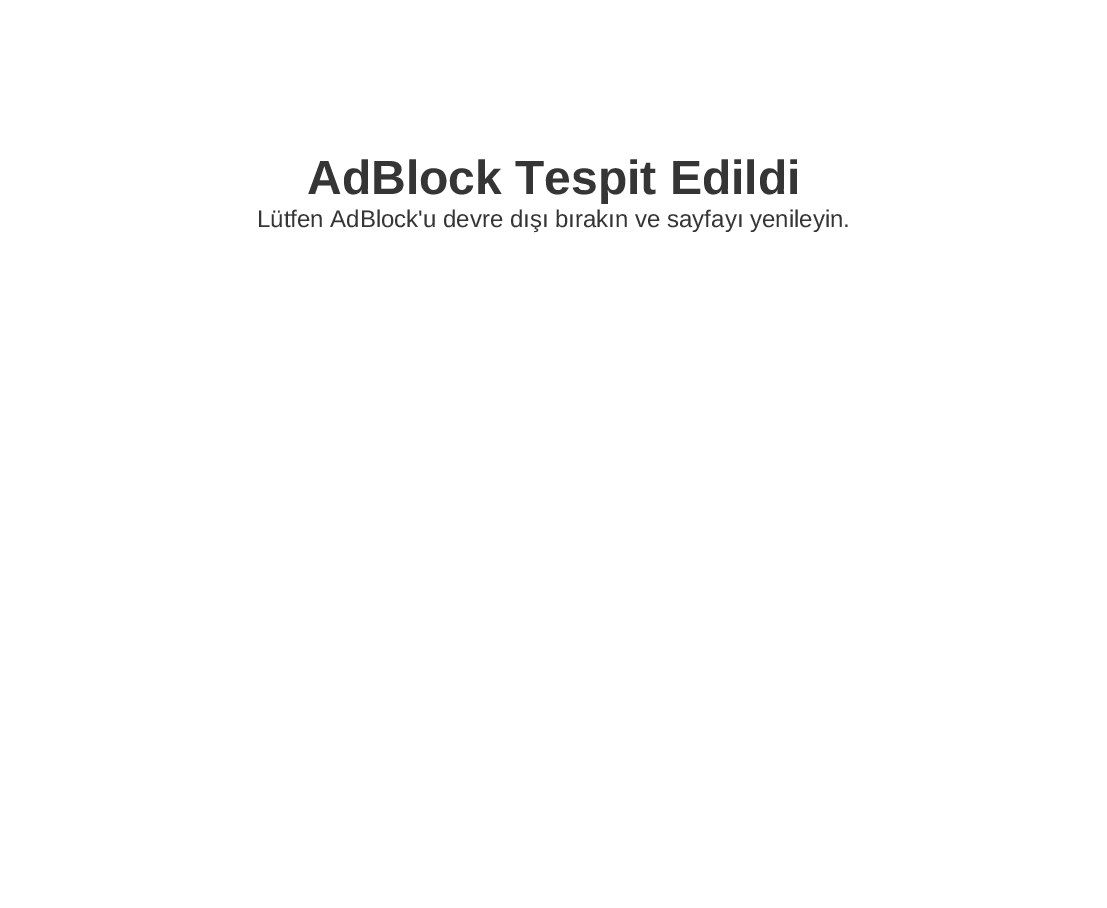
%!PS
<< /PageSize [1107 908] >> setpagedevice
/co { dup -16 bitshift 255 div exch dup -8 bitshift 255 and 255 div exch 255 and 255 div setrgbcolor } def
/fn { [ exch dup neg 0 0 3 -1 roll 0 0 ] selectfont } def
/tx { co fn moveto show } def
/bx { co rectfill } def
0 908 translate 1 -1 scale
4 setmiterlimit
0 0 1107 908 16#FFFFFF bx
(AdBlock Tespit Edildi) 307 194 /LiberationSans-Bold 48 16#353535 tx
(Lütfen AdBlock'u devre dışı bırakın ve sayfayı yenileyin.) 257 227 /LiberationSans-Regular 24 16#353535 tx
showpage
